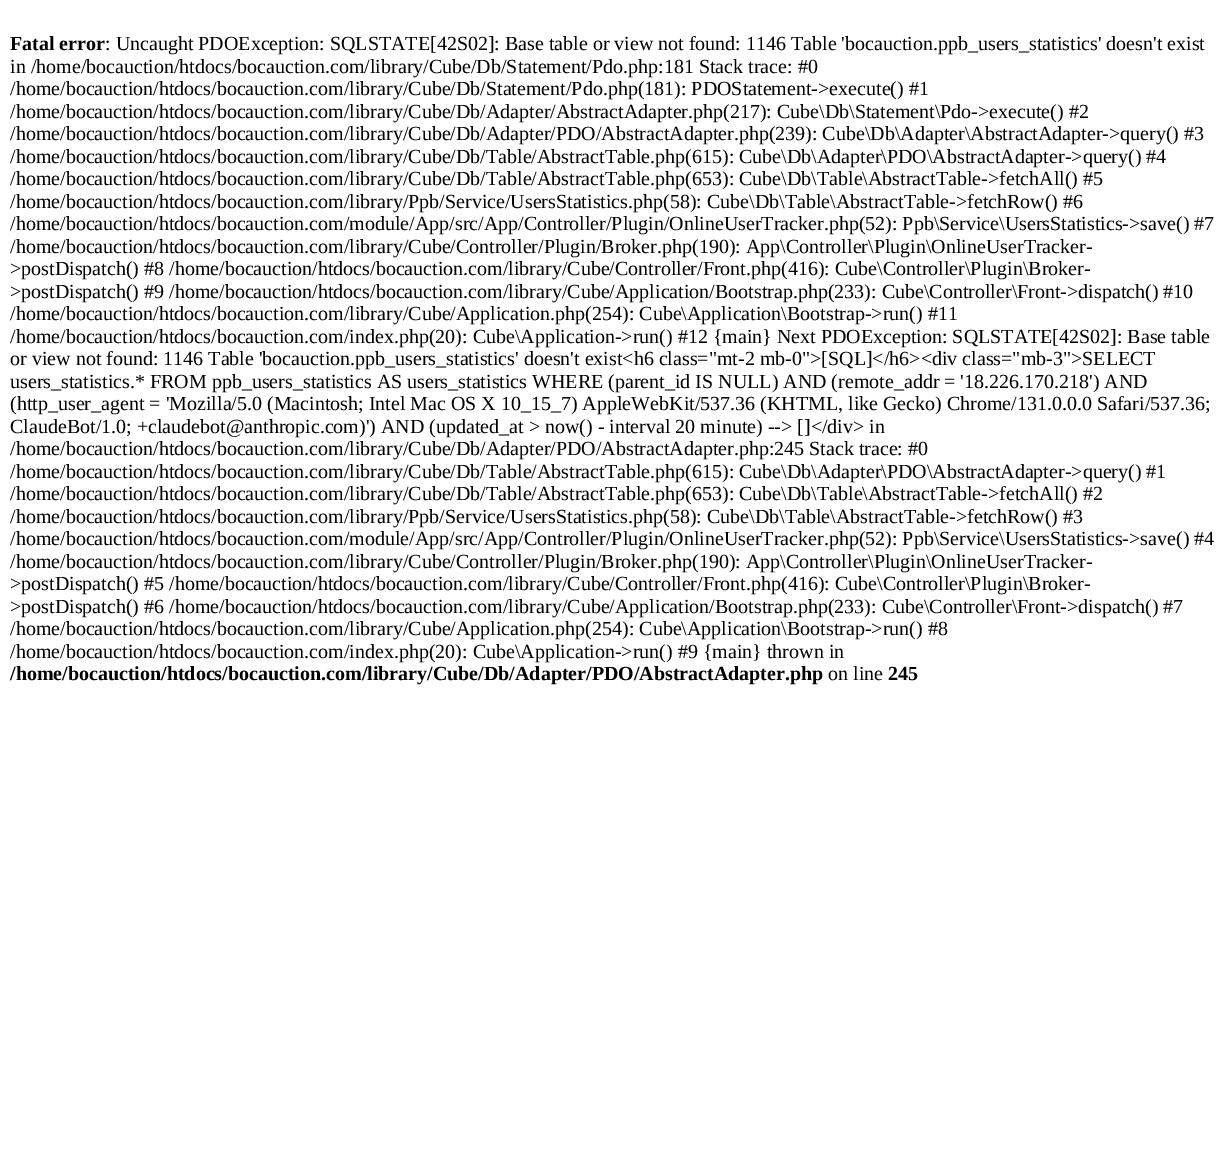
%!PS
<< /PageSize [1225 1167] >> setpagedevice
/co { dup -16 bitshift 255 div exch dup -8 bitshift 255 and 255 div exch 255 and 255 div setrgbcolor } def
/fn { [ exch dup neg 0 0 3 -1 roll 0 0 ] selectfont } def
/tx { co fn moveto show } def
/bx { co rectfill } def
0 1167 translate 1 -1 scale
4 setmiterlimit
0 0 1225 1167 16#FFFFFF bx
(Fatal error) 10 50 /LiberationSerif-Bold 20 16#000000 tx
(: Uncaught PDOException: SQLSTATE[42S02]: Base table or view not found: 1146 Table 'bocauction.ppb_users_statistics' doesn't exist) 105 50 /LiberationSerif-Regular 20 16#000000 tx
(in /home/bocauction/htdocs/bocauction.com/library/Cube/Db/Statement/Pdo.php:181 Stack trace: #0) 10 73 /LiberationSerif-Regular 20 16#000000 tx
(/home/bocauction/htdocs/bocauction.com/library/Cube/Db/Statement/Pdo.php\(181\): PDOStatement->execute\(\) #1) 10 95 /LiberationSerif-Regular 20 16#000000 tx
(/home/bocauction/htdocs/bocauction.com/library/Cube/Db/Adapter/AbstractAdapter.php\(217\): Cube\\Db\\Statement\\Pdo->execute\(\) #2) 10 118 /LiberationSerif-Regular 20 16#000000 tx
(/home/bocauction/htdocs/bocauction.com/library/Cube/Db/Adapter/PDO/AbstractAdapter.php\(239\): Cube\\Db\\Adapter\\AbstractAdapter->query\(\) #3) 10 140 /LiberationSerif-Regular 20 16#000000 tx
(/home/bocauction/htdocs/bocauction.com/library/Cube/Db/Table/AbstractTable.php\(615\): Cube\\Db\\Adapter\\PDO\\AbstractAdapter->query\(\) #4) 10 163 /LiberationSerif-Regular 20 16#000000 tx
(/home/bocauction/htdocs/bocauction.com/library/Cube/Db/Table/AbstractTable.php\(653\): Cube\\Db\\Table\\AbstractTable->fetchAll\(\) #5) 10 185 /LiberationSerif-Regular 20 16#000000 tx
(/home/bocauction/htdocs/bocauction.com/library/Ppb/Service/UsersStatistics.php\(58\): Cube\\Db\\Table\\AbstractTable->fetchRow\(\) #6) 10 208 /LiberationSerif-Regular 20 16#000000 tx
(/home/bocauction/htdocs/bocauction.com/module/App/src/App/Controller/Plugin/OnlineUserTracker.php\(52\): Ppb\\Service\\UsersStatistics->save\(\) #7) 10 230 /LiberationSerif-Regular 20 16#000000 tx
(/home/bocauction/htdocs/bocauction.com/library/Cube/Controller/Plugin/Broker.php\(190\): App\\Controller\\Plugin\\OnlineUserTracker-) 10 253 /LiberationSerif-Regular 20 16#000000 tx
(>postDispatch\(\) #8 /home/bocauction/htdocs/bocauction.com/library/Cube/Controller/Front.php\(416\): Cube\\Controller\\Plugin\\Broker-) 10 275 /LiberationSerif-Regular 20 16#000000 tx
(>postDispatch\(\) #9 /home/bocauction/htdocs/bocauction.com/library/Cube/Application/Bootstrap.php\(233\): Cube\\Controller\\Front->dispatch\(\) #10) 10 298 /LiberationSerif-Regular 20 16#000000 tx
(/home/bocauction/htdocs/bocauction.com/library/Cube/Application.php\(254\): Cube\\Application\\Bootstrap->run\(\) #11) 10 320 /LiberationSerif-Regular 20 16#000000 tx
(/home/bocauction/htdocs/bocauction.com/index.php\(20\): Cube\\Application->run\(\) #12 {main} Next PDOException: SQLSTATE[42S02]: Base table) 10 343 /LiberationSerif-Regular 20 16#000000 tx
(or view not found: 1146 Table 'bocauction.ppb_users_statistics' doesn't exist<h6 class="mt-2 mb-0">[SQL]</h6><div class="mb-3">SELECT) 10 365 /LiberationSerif-Regular 20 16#000000 tx
(users_statistics.* FROM ppb_users_statistics AS users_statistics WHERE \(parent_id IS NULL\) AND \(remote_addr = '18.226.170.218'\) AND) 10 388 /LiberationSerif-Regular 20 16#000000 tx
(\(http_user_agent = 'Mozilla/5.0 \(Macintosh; Intel Mac OS X 10_15_7\) AppleWebKit/537.36 \(KHTML, like Gecko\) Chrome/131.0.0.0 Safari/537.36;) 10 410 /LiberationSerif-Regular 20 16#000000 tx
(ClaudeBot/1.0; +claudebot@anthropic.com\)'\) AND \(updated_at > now\(\) - interval 20 minute\) --> []</div> in) 10 433 /LiberationSerif-Regular 20 16#000000 tx
(/home/bocauction/htdocs/bocauction.com/library/Cube/Db/Adapter/PDO/AbstractAdapter.php:245 Stack trace: #0) 10 455 /LiberationSerif-Regular 20 16#000000 tx
(/home/bocauction/htdocs/bocauction.com/library/Cube/Db/Table/AbstractTable.php\(615\): Cube\\Db\\Adapter\\PDO\\AbstractAdapter->query\(\) #1) 10 478 /LiberationSerif-Regular 20 16#000000 tx
(/home/bocauction/htdocs/bocauction.com/library/Cube/Db/Table/AbstractTable.php\(653\): Cube\\Db\\Table\\AbstractTable->fetchAll\(\) #2) 10 500 /LiberationSerif-Regular 20 16#000000 tx
(/home/bocauction/htdocs/bocauction.com/library/Ppb/Service/UsersStatistics.php\(58\): Cube\\Db\\Table\\AbstractTable->fetchRow\(\) #3) 10 523 /LiberationSerif-Regular 20 16#000000 tx
(/home/bocauction/htdocs/bocauction.com/module/App/src/App/Controller/Plugin/OnlineUserTracker.php\(52\): Ppb\\Service\\UsersStatistics->save\(\) #4) 10 545 /LiberationSerif-Regular 20 16#000000 tx
(/home/bocauction/htdocs/bocauction.com/library/Cube/Controller/Plugin/Broker.php\(190\): App\\Controller\\Plugin\\OnlineUserTracker-) 10 568 /LiberationSerif-Regular 20 16#000000 tx
(>postDispatch\(\) #5 /home/bocauction/htdocs/bocauction.com/library/Cube/Controller/Front.php\(416\): Cube\\Controller\\Plugin\\Broker-) 10 590 /LiberationSerif-Regular 20 16#000000 tx
(>postDispatch\(\) #6 /home/bocauction/htdocs/bocauction.com/library/Cube/Application/Bootstrap.php\(233\): Cube\\Controller\\Front->dispatch\(\) #7) 10 613 /LiberationSerif-Regular 20 16#000000 tx
(/home/bocauction/htdocs/bocauction.com/library/Cube/Application.php\(254\): Cube\\Application\\Bootstrap->run\(\) #8) 10 635 /LiberationSerif-Regular 20 16#000000 tx
(/home/bocauction/htdocs/bocauction.com/index.php\(20\): Cube\\Application->run\(\) #9 {main} thrown in) 10 658 /LiberationSerif-Regular 20 16#000000 tx
(/home/bocauction/htdocs/bocauction.com/library/Cube/Db/Adapter/PDO/AbstractAdapter.php) 10 680 /LiberationSerif-Bold 20 16#000000 tx
(on line) 828 680 /LiberationSerif-Regular 20 16#000000 tx
(245) 888 680 /LiberationSerif-Bold 20 16#000000 tx
showpage
